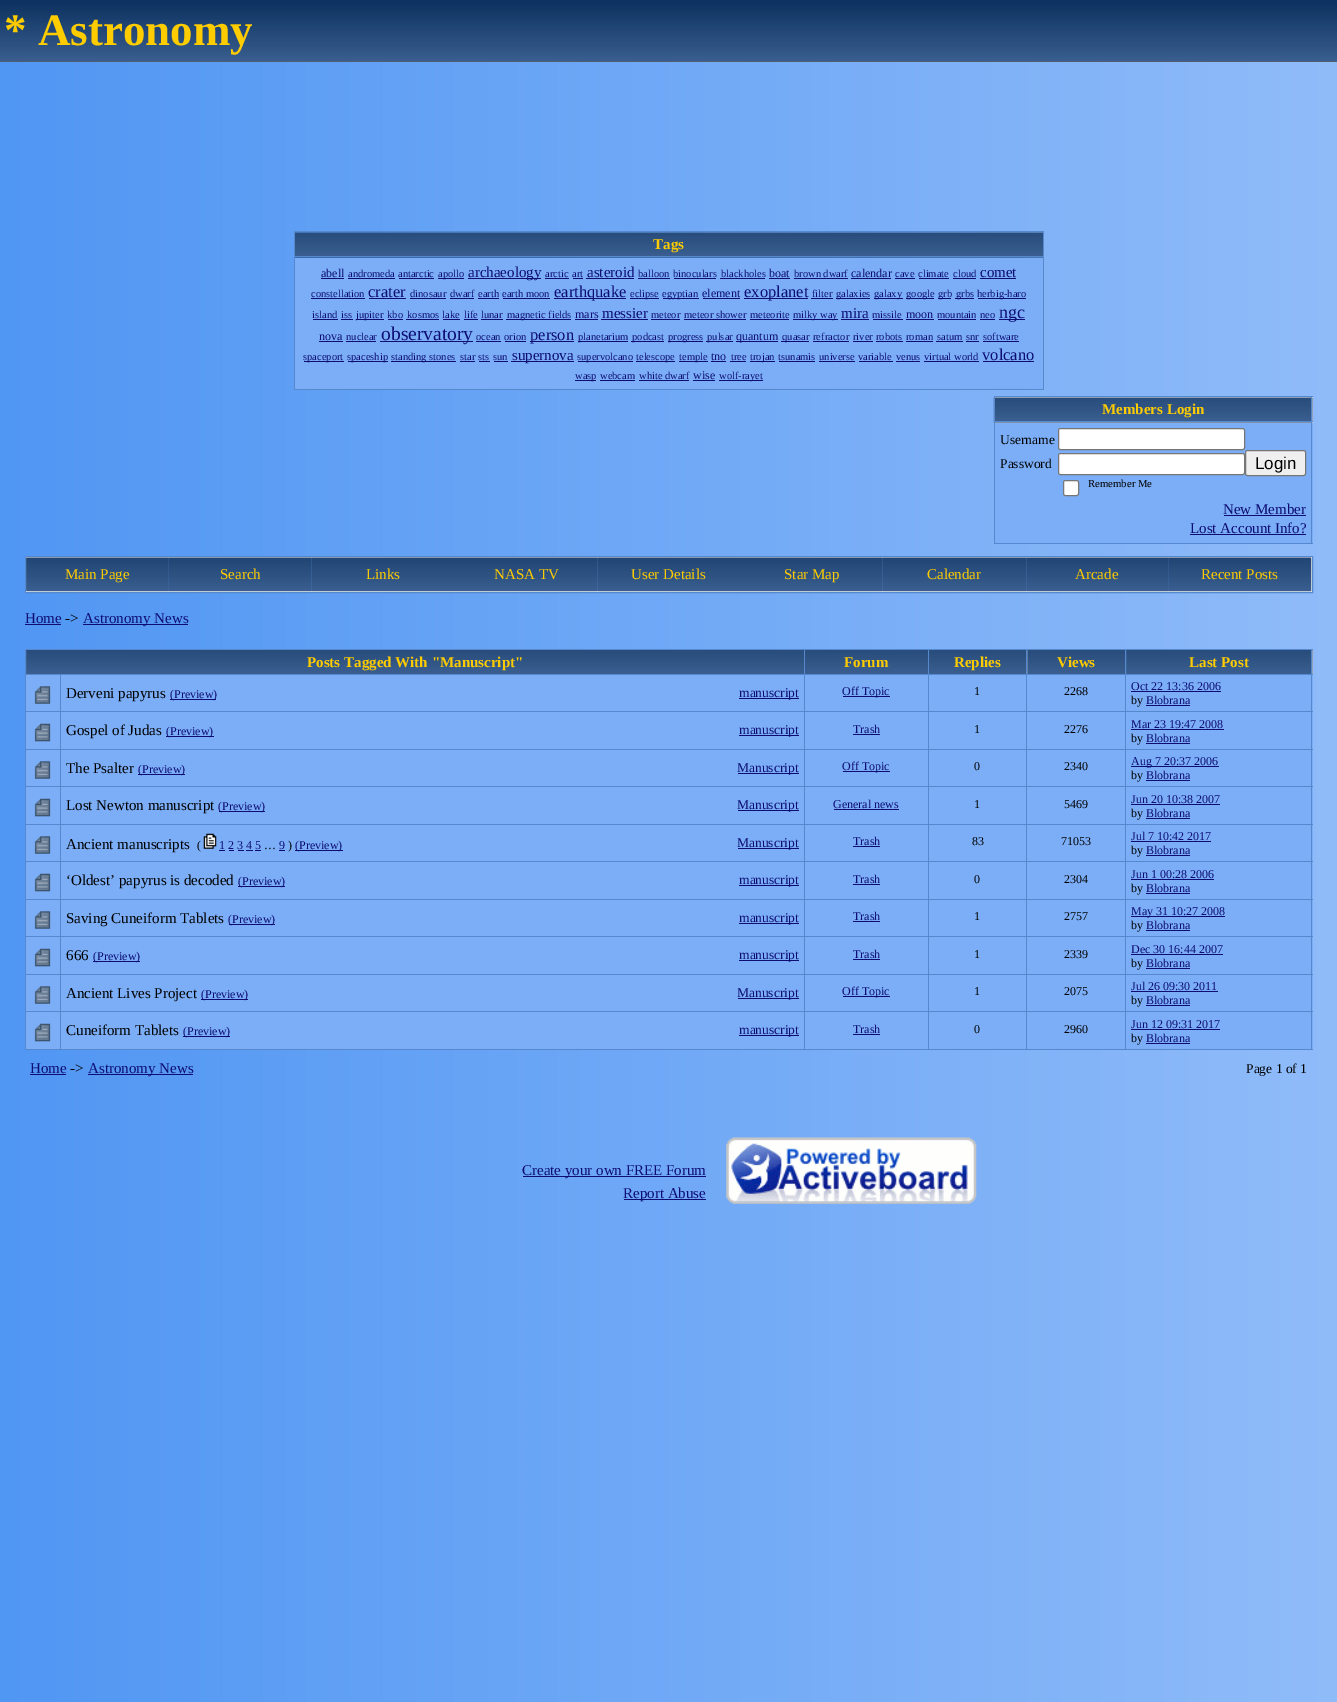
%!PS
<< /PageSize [1337 1702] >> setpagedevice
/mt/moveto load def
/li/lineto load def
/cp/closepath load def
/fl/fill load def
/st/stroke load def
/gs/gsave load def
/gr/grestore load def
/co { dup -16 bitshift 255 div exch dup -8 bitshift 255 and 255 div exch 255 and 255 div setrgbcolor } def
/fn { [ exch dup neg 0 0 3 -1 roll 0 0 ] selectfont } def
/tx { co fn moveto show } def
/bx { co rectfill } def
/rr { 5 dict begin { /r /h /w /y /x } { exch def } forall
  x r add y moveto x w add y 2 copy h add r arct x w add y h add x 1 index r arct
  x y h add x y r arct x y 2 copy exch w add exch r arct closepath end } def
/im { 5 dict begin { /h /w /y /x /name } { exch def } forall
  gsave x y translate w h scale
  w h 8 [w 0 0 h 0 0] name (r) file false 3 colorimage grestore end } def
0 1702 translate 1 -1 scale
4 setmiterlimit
0 0 1337 1702 16#FFFFFF bx
(media/1.raw) 0 62 1337 1640 im
(media/2.raw) 0 0 1337 61 im
0 61 1337 1 16#525E6E bx
294 231 750 1 16#5588CC bx
1043 231 1 159 16#5588CC bx
294 389 750 1 16#5588CC bx
294 231 1 159 16#5588CC bx
(media/3.raw) 295 232 748 26 im
295 258 748 131 16#7BAEF7 bx
294 256 750 1 16#5588CC bx
321 278 23 1 16#0D0D73 bx
348 278 47 1 16#0D0D73 bx
399 278 35 1 16#0D0D73 bx
438 278 26 1 16#0D0D73 bx
468 278 73 1 16#0D0D73 bx
545 278 24 1 16#0D0D73 bx
573 278 10 1 16#0D0D73 bx
586 278 48 1 16#0D0D73 bx
638 278 32 1 16#0D0D73 bx
674 278 42 1 16#0D0D73 bx
720 278 45 1 16#0D0D73 bx
769 278 21 1 16#0D0D73 bx
794 278 54 1 16#0D0D73 bx
851 278 40 1 16#0D0D73 bx
895 278 20 1 16#0D0D73 bx
919 278 30 1 16#0D0D73 bx
953 278 23 1 16#0D0D73 bx
980 278 36 1 16#0D0D73 bx
311 298 54 1 16#0D0D73 bx
369 298 37 1 16#0D0D73 bx
410 298 36 1 16#0D0D73 bx
450 298 24 1 16#0D0D73 bx
478 298 21 1 16#0D0D73 bx
503 298 47 1 16#0D0D73 bx
554 298 72 1 16#0D0D73 bx
630 298 29 1 16#0D0D73 bx
663 298 36 1 16#0D0D73 bx
703 298 37 1 16#0D0D73 bx
744 298 64 1 16#0D0D73 bx
811 298 22 1 16#0D0D73 bx
836 298 34 1 16#0D0D73 bx
874 298 29 1 16#0D0D73 bx
906 298 28 1 16#0D0D73 bx
938 298 13 1 16#0D0D73 bx
955 298 19 1 16#0D0D73 bx
978 298 48 1 16#0D0D73 bx
313 319 25 1 16#0D0D73 bx
341 319 12 1 16#0D0D73 bx
356 319 28 1 16#0D0D73 bx
388 319 15 1 16#0D0D73 bx
406 319 33 1 16#0D0D73 bx
443 319 17 1 16#0D0D73 bx
464 319 14 1 16#0D0D73 bx
481 319 22 1 16#0D0D73 bx
506 319 65 1 16#0D0D73 bx
575 319 23 1 16#0D0D73 bx
601 319 47 1 16#0D0D73 bx
651 319 29 1 16#0D0D73 bx
684 319 62 1 16#0D0D73 bx
750 319 39 1 16#0D0D73 bx
793 319 45 1 16#0D0D73 bx
841 319 28 1 16#0D0D73 bx
873 319 30 1 16#0D0D73 bx
906 319 28 1 16#0D0D73 bx
938 319 38 1 16#0D0D73 bx
980 319 15 1 16#0D0D73 bx
999 319 26 1 16#0D0D73 bx
319 341 24 1 16#0D0D73 bx
346 341 30 1 16#0D0D73 bx
380 341 93 1 16#0D0D73 bx
476 341 25 1 16#0D0D73 bx
505 341 21 1 16#0D0D73 bx
530 341 44 1 16#0D0D73 bx
578 341 50 1 16#0D0D73 bx
631 341 33 1 16#0D0D73 bx
668 341 35 1 16#0D0D73 bx
706 341 27 1 16#0D0D73 bx
736 341 42 1 16#0D0D73 bx
781 341 28 1 16#0D0D73 bx
813 341 36 1 16#0D0D73 bx
853 341 20 1 16#0D0D73 bx
876 341 27 1 16#0D0D73 bx
906 341 27 1 16#0D0D73 bx
936 341 27 1 16#0D0D73 bx
966 341 13 1 16#0D0D73 bx
983 341 36 1 16#0D0D73 bx
304 361 40 1 16#0D0D73 bx
348 361 40 1 16#0D0D73 bx
391 361 65 1 16#0D0D73 bx
460 361 15 1 16#0D0D73 bx
479 361 11 1 16#0D0D73 bx
494 361 14 1 16#0D0D73 bx
511 361 63 1 16#0D0D73 bx
578 361 55 1 16#0D0D73 bx
636 361 39 1 16#0D0D73 bx
679 361 29 1 16#0D0D73 bx
711 361 15 1 16#0D0D73 bx
730 361 16 1 16#0D0D73 bx
750 361 25 1 16#0D0D73 bx
779 361 36 1 16#0D0D73 bx
819 361 36 1 16#0D0D73 bx
859 361 34 1 16#0D0D73 bx
896 361 24 1 16#0D0D73 bx
924 361 55 1 16#0D0D73 bx
983 361 51 1 16#0D0D73 bx
575 380 21 1 16#0D0D73 bx
600 380 35 1 16#0D0D73 bx
639 380 50 1 16#0D0D73 bx
693 380 22 1 16#0D0D73 bx
719 380 44 1 16#0D0D73 bx
995 397 318 26 16#EFEFEF bx
994 396 319 1 16#5588CC bx
(media/4.raw) 993 397 320 26 im
995 423 318 120 16#7BAEF7 bx
1311 396 1 148 16#5588CC bx
994 543 319 1 16#5588CC bx
994 396 1 148 16#5588CC bx
994 421 319 1 16#5588CC bx
16#FFFFFF co
1058.5 428.5 186 21 2 rr gs fl gr
16#767676 co
st
16#FFFFFF co
1058.5 453.5 186 21 2 rr gs fl gr
16#767676 co
st
16#EFEFEF co
1245.5 450.5 60 25 2 rr gs fl gr
16#767676 co
st
16#FFFFFF co
1063.5 480.5 15 15 2 rr gs fl gr
16#767676 co
st
1224 515 82 1 16#0D0D73 bx
1190 534 116 1 16#0D0D73 bx
16#EFEFEF co
25.5 556.5 mt 1312.5 556.5 li 1312.5 592.5 li 25.5 592.5 li cp gs fl gr
16#5588CC co
st
(media/5.raw) 26 557 143 35 im
(media/6.raw) 168 557 144 35 im
(media/7.raw) 311 557 144 35 im
(media/8.raw) 455 557 143 35 im
(media/9.raw) 597 557 143 35 im
(media/8.raw) 740 557 143 35 im
(media/10.raw) 882 557 145 35 im
(media/11.raw) 1026 557 143 35 im
(media/6.raw) 1168 557 144 35 im
25 624 36 1 16#0D0D73 bx
83 624 105 1 16#0D0D73 bx
26 650 1287 24 16#EFEFEF bx
25 649 1288 1 16#5588CC bx
(media/14.raw) 929 650 99 24 im
(media/15.raw) 1027 650 100 24 im
(media/16.raw) 1126 650 187 24 im
1126 675 187 74 16#7BAEF7 bx
1126 750 187 74 16#7BAEF7 bx
1126 825 187 74 16#7BAEF7 bx
1126 900 187 74 16#7BAEF7 bx
1126 975 187 74 16#7BAEF7 bx
1311 649 1 401 16#5588CC bx
25 1049 1288 1 16#5588CC bx
25 649 1 401 16#5588CC bx
(media/12.raw) 26 650 778 24 im
1125 674 188 1 16#5588CC bx
929 675 196 38 16#7BAEF7 bx
1125 711 188 1 16#5588CC bx
1125 749 188 1 16#5588CC bx
929 750 196 38 16#7BAEF7 bx
1125 786 188 1 16#5588CC bx
1125 824 188 1 16#5588CC bx
929 825 196 38 16#7BAEF7 bx
1125 861 188 1 16#5588CC bx
1125 899 188 1 16#5588CC bx
929 900 196 38 16#7BAEF7 bx
1125 936 188 1 16#5588CC bx
1125 974 188 1 16#5588CC bx
929 975 196 38 16#7BAEF7 bx
1125 1011 188 1 16#5588CC bx
1125 1011 1 39 16#5588CC bx
1026 1011 100 1 16#5588CC bx
1125 974 1 39 16#5588CC bx
1026 974 100 1 16#5588CC bx
1125 936 1 39 16#5588CC bx
1026 936 100 1 16#5588CC bx
1125 899 1 39 16#5588CC bx
1026 899 100 1 16#5588CC bx
1125 861 1 39 16#5588CC bx
1026 861 100 1 16#5588CC bx
1125 824 1 39 16#5588CC bx
1026 824 100 1 16#5588CC bx
1125 786 1 39 16#5588CC bx
1026 786 100 1 16#5588CC bx
1125 749 1 39 16#5588CC bx
1026 749 100 1 16#5588CC bx
1125 711 1 39 16#5588CC bx
1026 711 100 1 16#5588CC bx
1125 674 1 39 16#5588CC bx
1026 674 100 1 16#5588CC bx
929 713 196 36 16#7BAEF7 bx
929 788 196 36 16#7BAEF7 bx
929 863 196 36 16#7BAEF7 bx
929 938 196 36 16#7BAEF7 bx
929 1013 196 36 16#7BAEF7 bx
1026 1011 1 39 16#5588CC bx
928 1011 100 1 16#5588CC bx
1026 974 1 39 16#5588CC bx
928 974 100 1 16#5588CC bx
1026 936 1 39 16#5588CC bx
928 936 100 1 16#5588CC bx
1026 899 1 39 16#5588CC bx
928 899 100 1 16#5588CC bx
1026 861 1 39 16#5588CC bx
928 861 100 1 16#5588CC bx
1026 824 1 39 16#5588CC bx
928 824 100 1 16#5588CC bx
1026 786 1 39 16#5588CC bx
928 786 100 1 16#5588CC bx
1026 749 1 39 16#5588CC bx
928 749 100 1 16#5588CC bx
1026 711 1 39 16#5588CC bx
928 711 100 1 16#5588CC bx
1026 674 1 39 16#5588CC bx
928 674 100 1 16#5588CC bx
805 675 123 74 16#7BAEF7 bx
805 750 123 74 16#7BAEF7 bx
805 825 123 74 16#7BAEF7 bx
805 900 123 74 16#7BAEF7 bx
805 975 123 74 16#7BAEF7 bx
928 1011 1 39 16#5588CC bx
804 1011 125 1 16#5588CC bx
928 974 1 39 16#5588CC bx
804 974 125 1 16#5588CC bx
928 936 1 39 16#5588CC bx
804 936 125 1 16#5588CC bx
928 899 1 39 16#5588CC bx
804 899 125 1 16#5588CC bx
928 861 1 39 16#5588CC bx
804 861 125 1 16#5588CC bx
928 824 1 39 16#5588CC bx
804 824 125 1 16#5588CC bx
928 786 1 39 16#5588CC bx
804 786 125 1 16#5588CC bx
928 749 1 39 16#5588CC bx
804 749 125 1 16#5588CC bx
928 711 1 39 16#5588CC bx
804 711 125 1 16#5588CC bx
928 674 1 39 16#5588CC bx
804 674 125 1 16#5588CC bx
61 675 743 74 16#7BAEF7 bx
61 750 743 74 16#7BAEF7 bx
61 825 743 74 16#7BAEF7 bx
61 900 743 74 16#7BAEF7 bx
61 975 743 74 16#7BAEF7 bx
804 1011 1 39 16#5588CC bx
60 1011 745 1 16#5588CC bx
804 974 1 39 16#5588CC bx
60 974 745 1 16#5588CC bx
804 936 1 39 16#5588CC bx
60 936 745 1 16#5588CC bx
804 899 1 39 16#5588CC bx
60 899 745 1 16#5588CC bx
804 861 1 39 16#5588CC bx
60 861 745 1 16#5588CC bx
804 824 1 39 16#5588CC bx
60 824 745 1 16#5588CC bx
804 786 1 39 16#5588CC bx
60 786 745 1 16#5588CC bx
804 749 1 39 16#5588CC bx
60 749 745 1 16#5588CC bx
804 711 1 39 16#5588CC bx
60 711 745 1 16#5588CC bx
804 674 1 39 16#5588CC bx
60 674 745 1 16#5588CC bx
804 649 1 26 16#5588CC bx
(media/13.raw) 805 650 123 24 im
928 649 1 26 16#5588CC bx
1026 649 1 26 16#5588CC bx
1125 649 1 26 16#5588CC bx
26 675 34 74 16#7BAEF7 bx
26 750 34 74 16#7BAEF7 bx
26 825 34 74 16#7BAEF7 bx
26 900 34 74 16#7BAEF7 bx
26 975 34 74 16#7BAEF7 bx
60 1011 1 39 16#5588CC bx
25 1011 36 1 16#5588CC bx
60 974 1 39 16#5588CC bx
25 974 36 1 16#5588CC bx
60 936 1 39 16#5588CC bx
25 936 36 1 16#5588CC bx
60 899 1 39 16#5588CC bx
25 899 36 1 16#5588CC bx
60 861 1 39 16#5588CC bx
25 861 36 1 16#5588CC bx
60 824 1 39 16#5588CC bx
25 824 36 1 16#5588CC bx
60 786 1 39 16#5588CC bx
25 786 36 1 16#5588CC bx
60 749 1 39 16#5588CC bx
25 749 36 1 16#5588CC bx
60 711 1 39 16#5588CC bx
25 711 36 1 16#5588CC bx
60 674 1 39 16#5588CC bx
25 674 36 1 16#5588CC bx
(media/17.raw) 34 686 17 18 im
170 699 46 1 16#0D0D73 bx
739 698 60 1 16#0D0D73 bx
843 696 47 1 16#0D0D73 bx
1131 691 90 1 16#0D0D73 bx
1146 705 44 1 16#0D0D73 bx
(media/18.raw) 34 723 17 19 im
166 736 48 1 16#0D0D73 bx
739 735 60 1 16#0D0D73 bx
853 734 27 1 16#0D0D73 bx
1131 729 93 1 16#0D0D73 bx
1146 743 44 1 16#0D0D73 bx
(media/17.raw) 34 761 17 18 im
138 774 47 1 16#0D0D73 bx
738 773 61 1 16#0D0D73 bx
843 771 47 1 16#0D0D73 bx
1131 766 88 1 16#0D0D73 bx
1146 780 44 1 16#0D0D73 bx
(media/18.raw) 34 798 17 19 im
219 811 46 1 16#0D0D73 bx
738 810 61 1 16#0D0D73 bx
834 809 65 1 16#0D0D73 bx
1131 804 89 1 16#0D0D73 bx
1146 818 44 1 16#0D0D73 bx
(media/17.raw) 34 836 17 18 im
(media/19.raw) 203 833 14 16 im
219 850 6 1 16#0D0D73 bx
229 850 5 1 16#0D0D73 bx
238 850 6 1 16#0D0D73 bx
246 850 7 1 16#0D0D73 bx
255 850 6 1 16#0D0D73 bx
279 850 6 1 16#0D0D73 bx
295 850 48 1 16#0D0D73 bx
738 848 61 1 16#0D0D73 bx
853 846 27 1 16#0D0D73 bx
1131 841 80 1 16#0D0D73 bx
1146 855 44 1 16#0D0D73 bx
(media/18.raw) 34 873 17 19 im
238 886 47 1 16#0D0D73 bx
739 885 60 1 16#0D0D73 bx
853 884 27 1 16#0D0D73 bx
1131 879 83 1 16#0D0D73 bx
1146 893 44 1 16#0D0D73 bx
(media/17.raw) 34 911 17 18 im
229 924 46 1 16#0D0D73 bx
739 923 60 1 16#0D0D73 bx
853 921 27 1 16#0D0D73 bx
1131 916 94 1 16#0D0D73 bx
1146 930 44 1 16#0D0D73 bx
(media/18.raw) 34 948 17 19 im
93 961 47 1 16#0D0D73 bx
739 960 60 1 16#0D0D73 bx
853 959 27 1 16#0D0D73 bx
1131 954 92 1 16#0D0D73 bx
1146 968 44 1 16#0D0D73 bx
(media/17.raw) 34 986 17 18 im
201 999 47 1 16#0D0D73 bx
738 998 61 1 16#0D0D73 bx
843 996 47 1 16#0D0D73 bx
1131 991 87 1 16#0D0D73 bx
1146 1005 44 1 16#0D0D73 bx
(media/20.raw) 34 1023 17 19 im
183 1036 47 1 16#0D0D73 bx
739 1035 60 1 16#0D0D73 bx
853 1034 27 1 16#0D0D73 bx
1131 1029 89 1 16#0D0D73 bx
1146 1043 44 1 16#0D0D73 bx
30 1074 36 1 16#0D0D73 bx
88 1074 105 1 16#0D0D73 bx
523 1176 183 1 16#0D0D73 bx
624 1199 82 1 16#0D0D73 bx
(media/21.raw) 726 1137 251 67 im
(* Astronomy) 4 45 /LiberationSerif-Bold 45 16#FFCC00 tx
(Tags) 653 249 /LiberationSerif-Bold 15 16#FFCC00 tx
(abell) 321 277 /LiberationSerif-Regular 12 16#0D0D73 tx
(andromeda) 348 277 /LiberationSerif-Regular 10.5 16#0D0D73 tx
(antarctic) 398 277 /LiberationSerif-Regular 10.5 16#0D0D73 tx
(apollo) 438 277 /LiberationSerif-Regular 10.5 16#0D0D73 tx
(archaeology) 468 277 /LiberationSerif-Regular 15 16#0D0D73 tx
(arctic) 545 277 /LiberationSerif-Regular 10.5 16#0D0D73 tx
(art) 572 277 /LiberationSerif-Regular 10.5 16#0D0D73 tx
(asteroid) 587 277 /LiberationSerif-Regular 15 16#0D0D73 tx
(balloon) 638 277 /LiberationSerif-Regular 10.5 16#0D0D73 tx
(binoculars) 673 277 /LiberationSerif-Regular 10.5 16#0D0D73 tx
(blackholes) 721 277 /LiberationSerif-Regular 10.5 16#0D0D73 tx
(boat) 769 277 /LiberationSerif-Regular 12 16#0D0D73 tx
(brown dwarf) 794 277 /LiberationSerif-Regular 10.5 16#0D0D73 tx
(calendar) 851 277 /LiberationSerif-Regular 12 16#0D0D73 tx
(cave) 895 277 /LiberationSerif-Regular 10.5 16#0D0D73 tx
(climate) 918 277 /LiberationSerif-Regular 10.5 16#0D0D73 tx
(cloud) 953 277 /LiberationSerif-Regular 10.5 16#0D0D73 tx
(comet) 980 277 /LiberationSerif-Regular 15 16#0D0D73 tx
(constellation) 311 297 /LiberationSerif-Regular 10.5 16#0D0D73 tx
(crater) 368 297 /LiberationSerif-Regular 16.5 16#0D0D73 tx
(dinosaur) 410 297 /LiberationSerif-Regular 10.5 16#0D0D73 tx
(dwarf) 450 297 /LiberationSerif-Regular 10.5 16#0D0D73 tx
(earth) 478 297 /LiberationSerif-Regular 10.5 16#0D0D73 tx
(earth moon) 502 297 /LiberationSerif-Regular 10.5 16#0D0D73 tx
(earthquake) 554 297 /LiberationSerif-Regular 16.5 16#0D0D73 tx
(eclipse) 630 297 /LiberationSerif-Regular 10.5 16#0D0D73 tx
(egyptian) 662 297 /LiberationSerif-Regular 10.5 16#0D0D73 tx
(element) 702 297 /LiberationSerif-Regular 12 16#0D0D73 tx
(exoplanet) 744 297 /LiberationSerif-Regular 16.5 16#0D0D73 tx
(filter) 812 297 /LiberationSerif-Regular 10.5 16#0D0D73 tx
(galaxies) 836 297 /LiberationSerif-Regular 10.5 16#0D0D73 tx
(galaxy) 874 297 /LiberationSerif-Regular 10.5 16#0D0D73 tx
(google) 906 297 /LiberationSerif-Regular 10.5 16#0D0D73 tx
(grb) 938 297 /LiberationSerif-Regular 10.5 16#0D0D73 tx
(grbs) 956 297 /LiberationSerif-Regular 10.5 16#0D0D73 tx
(herbig-haro) 977 297 /LiberationSerif-Regular 10.5 16#0D0D73 tx
(island) 312 318 /LiberationSerif-Regular 10.5 16#0D0D73 tx
(iss) 341 318 /LiberationSerif-Regular 10.5 16#0D0D73 tx
(jupiter) 356 318 /LiberationSerif-Regular 10.5 16#0D0D73 tx
(kbo) 387 318 /LiberationSerif-Regular 10.5 16#0D0D73 tx
(kosmos) 407 318 /LiberationSerif-Regular 10.5 16#0D0D73 tx
(lake) 442 318 /LiberationSerif-Regular 10.5 16#0D0D73 tx
(life) 464 318 /LiberationSerif-Regular 10.5 16#0D0D73 tx
(lunar) 481 318 /LiberationSerif-Regular 10.5 16#0D0D73 tx
(magnetic fields) 507 318 /LiberationSerif-Regular 10.5 16#0D0D73 tx
(mars) 575 318 /LiberationSerif-Regular 12 16#0D0D73 tx
(messier) 602 318 /LiberationSerif-Regular 15 16#0D0D73 tx
(meteor) 651 318 /LiberationSerif-Regular 10.5 16#0D0D73 tx
(meteor shower) 684 318 /LiberationSerif-Regular 10.5 16#0D0D73 tx
(meteorite) 750 318 /LiberationSerif-Regular 10.5 16#0D0D73 tx
(milky way) 793 318 /LiberationSerif-Regular 10.5 16#0D0D73 tx
(mira) 841 318 /LiberationSerif-Regular 15 16#0D0D73 tx
(missile) 872 318 /LiberationSerif-Regular 10.5 16#0D0D73 tx
(moon) 906 318 /LiberationSerif-Regular 12 16#0D0D73 tx
(mountain) 937 318 /LiberationSerif-Regular 10.5 16#0D0D73 tx
(neo) 980 318 /LiberationSerif-Regular 10.5 16#0D0D73 tx
(ngc) 999 318 /LiberationSerif-Regular 18 16#0D0D73 tx
(nova) 319 340 /LiberationSerif-Regular 12 16#0D0D73 tx
(nuclear) 346 340 /LiberationSerif-Regular 10.5 16#0D0D73 tx
(observatory) 381 340 /LiberationSerif-Regular 19.5 16#0D0D73 tx
(ocean) 476 340 /LiberationSerif-Regular 10.5 16#0D0D73 tx
(orion) 504 340 /LiberationSerif-Regular 10.5 16#0D0D73 tx
(person) 530 340 /LiberationSerif-Regular 16.5 16#0D0D73 tx
(planetarium) 578 340 /LiberationSerif-Regular 10.5 16#0D0D73 tx
(podcast) 632 340 /LiberationSerif-Regular 10.5 16#0D0D73 tx
(progress) 668 340 /LiberationSerif-Regular 10.5 16#0D0D73 tx
(pulsar) 707 340 /LiberationSerif-Regular 10.5 16#0D0D73 tx
(quantum) 736 340 /LiberationSerif-Regular 12 16#0D0D73 tx
(quasar) 782 340 /LiberationSerif-Regular 10.5 16#0D0D73 tx
(refractor) 813 340 /LiberationSerif-Regular 10.5 16#0D0D73 tx
(river) 853 340 /LiberationSerif-Regular 10.5 16#0D0D73 tx
(robots) 876 340 /LiberationSerif-Regular 10.5 16#0D0D73 tx
(roman) 906 340 /LiberationSerif-Regular 10.5 16#0D0D73 tx
(saturn) 937 340 /LiberationSerif-Regular 10.5 16#0D0D73 tx
(snr) 966 340 /LiberationSerif-Regular 10.5 16#0D0D73 tx
(software) 983 340 /LiberationSerif-Regular 10.5 16#0D0D73 tx
(spaceport) 303 360 /LiberationSerif-Regular 10.5 16#0D0D73 tx
(spaceship) 347 360 /LiberationSerif-Regular 10.5 16#0D0D73 tx
(standing stones) 391 360 /LiberationSerif-Regular 10.5 16#0D0D73 tx
(star) 460 360 /LiberationSerif-Regular 10.5 16#0D0D73 tx
(sts) 478 360 /LiberationSerif-Regular 10.5 16#0D0D73 tx
(sun) 493 360 /LiberationSerif-Regular 10.5 16#0D0D73 tx
(supernova) 512 360 /LiberationSerif-Regular 15 16#0D0D73 tx
(supervolcano) 577 360 /LiberationSerif-Regular 10.5 16#0D0D73 tx
(telescope) 636 360 /LiberationSerif-Regular 10.5 16#0D0D73 tx
(temple) 679 360 /LiberationSerif-Regular 10.5 16#0D0D73 tx
(tno) 711 360 /LiberationSerif-Regular 12 16#0D0D73 tx
(tree) 731 360 /LiberationSerif-Regular 10.5 16#0D0D73 tx
(trojan) 750 360 /LiberationSerif-Regular 10.5 16#0D0D73 tx
(tsunamis) 778 360 /LiberationSerif-Regular 10.5 16#0D0D73 tx
(universe) 819 360 /LiberationSerif-Regular 10.5 16#0D0D73 tx
(variable) 858 360 /LiberationSerif-Regular 10.5 16#0D0D73 tx
(venus) 896 360 /LiberationSerif-Regular 10.5 16#0D0D73 tx
(virtual world) 924 360 /LiberationSerif-Regular 10.5 16#0D0D73 tx
(volcano) 982 360 /LiberationSerif-Regular 16.5 16#0D0D73 tx
(wasp) 575 379 /LiberationSerif-Regular 10.5 16#0D0D73 tx
(webcam) 600 379 /LiberationSerif-Regular 10.5 16#0D0D73 tx
(white dwarf) 639 379 /LiberationSerif-Regular 10.5 16#0D0D73 tx
(wise) 693 379 /LiberationSerif-Regular 12 16#0D0D73 tx
(wolf-rayet) 719 379 /LiberationSerif-Regular 10.5 16#0D0D73 tx
(Members Login) 1102 414 /LiberationSerif-Bold 15 16#FFCC00 tx
(Username) 1000 444 /LiberationSerif-Regular 13.5 16#000000 tx
(Password) 1000 468 /LiberationSerif-Regular 13.5 16#000000 tx
(Login) 1255 469 /LiberationSans-Regular 17 16#000000 tx
(Remember Me) 1088 487 /LiberationSerif-Regular 10.75 16#000000 tx
(New Member) 1223 514 /LiberationSerif-Regular 15 16#0D0D73 tx
(Lost Account Info?) 1190 533 /LiberationSerif-Regular 15 16#0D0D73 tx
(Main Page) 65 579 /LiberationSerif-Regular 15 16#FFCC00 tx
(Search) 220 579 /LiberationSerif-Regular 15 16#FFCC00 tx
(Links) 366 579 /LiberationSerif-Regular 15 16#FFCC00 tx
(NASA TV) 494 579 /LiberationSerif-Regular 15 16#FFCC00 tx
(User Details) 631 579 /LiberationSerif-Regular 15 16#FFCC00 tx
(Star Map) 784 579 /LiberationSerif-Regular 15 16#FFCC00 tx
(Calendar) 927 579 /LiberationSerif-Regular 15 16#FFCC00 tx
(Arcade) 1075 579 /LiberationSerif-Regular 15 16#FFCC00 tx
(Recent Posts) 1201 579 /LiberationSerif-Regular 15 16#FFCC00 tx
(Home) 25 623 /LiberationSerif-Regular 15 16#0D0D73 tx
(->) 65 623 /LiberationSerif-Regular 15 16#000000 tx
(Astronomy News) 83 623 /LiberationSerif-Regular 15 16#0D0D73 tx
(Posts Tagged With "Manuscript") 307 667 /LiberationSerif-Bold 15 16#FFCC00 tx
(Forum) 844 667 /LiberationSerif-Bold 15 16#FFCC00 tx
(Replies) 954 667 /LiberationSerif-Bold 15 16#FFCC00 tx
(Views) 1057 667 /LiberationSerif-Bold 15 16#FFCC00 tx
(Last Post) 1189 667 /LiberationSerif-Bold 15 16#FFCC00 tx
(Derveni papyrus) 66 698 /LiberationSerif-Regular 15 16#000000 tx
(\(Preview\)) 170 698 /LiberationSerif-Regular 12 16#0D0D73 tx
(manuscript) 739 697 /LiberationSerif-Regular 13.5 16#0D0D73 tx
(Off Topic) 842 695 /LiberationSerif-Regular 12 16#0D0D73 tx
(1) 974 695 /LiberationSerif-Regular 12 16#000000 tx
(2268) 1064 695 /LiberationSerif-Regular 12 16#000000 tx
(Oct 22 13:36 2006) 1131 690 /LiberationSerif-Regular 12 16#0D0D73 tx
(by) 1131 704 /LiberationSerif-Regular 12 16#000000 tx
(Blobrana) 1146 704 /LiberationSerif-Regular 12 16#0D0D73 tx
(Gospel of Judas) 66 735 /LiberationSerif-Regular 15 16#000000 tx
(\(Preview\)) 166 735 /LiberationSerif-Regular 12 16#0D0D73 tx
(manuscript) 739 734 /LiberationSerif-Regular 13.5 16#0D0D73 tx
(Trash) 853 733 /LiberationSerif-Regular 12 16#0D0D73 tx
(1) 974 733 /LiberationSerif-Regular 12 16#000000 tx
(2276) 1064 733 /LiberationSerif-Regular 12 16#000000 tx
(Mar 23 19:47 2008) 1131 728 /LiberationSerif-Regular 12 16#0D0D73 tx
(by) 1131 742 /LiberationSerif-Regular 12 16#000000 tx
(Blobrana) 1146 742 /LiberationSerif-Regular 12 16#0D0D73 tx
(The Psalter) 66 773 /LiberationSerif-Regular 15 16#000000 tx
(\(Preview\)) 138 773 /LiberationSerif-Regular 12 16#0D0D73 tx
(Manuscript) 737 772 /LiberationSerif-Regular 13.5 16#0D0D73 tx
(Off Topic) 842 770 /LiberationSerif-Regular 12 16#0D0D73 tx
(0) 974 770 /LiberationSerif-Regular 12 16#000000 tx
(2340) 1064 770 /LiberationSerif-Regular 12 16#000000 tx
(Aug 7 20:37 2006) 1131 765 /LiberationSerif-Regular 12 16#0D0D73 tx
(by) 1131 779 /LiberationSerif-Regular 12 16#000000 tx
(Blobrana) 1146 779 /LiberationSerif-Regular 12 16#0D0D73 tx
(Lost Newton manuscript) 66 810 /LiberationSerif-Regular 15 16#000000 tx
(\(Preview\)) 218 810 /LiberationSerif-Regular 12 16#0D0D73 tx
(Manuscript) 737 809 /LiberationSerif-Regular 13.5 16#0D0D73 tx
(General news) 833 808 /LiberationSerif-Regular 12 16#0D0D73 tx
(1) 974 808 /LiberationSerif-Regular 12 16#000000 tx
(5469) 1064 808 /LiberationSerif-Regular 12 16#000000 tx
(Jun 20 10:38 2007) 1131 803 /LiberationSerif-Regular 12 16#0D0D73 tx
(by) 1131 817 /LiberationSerif-Regular 12 16#000000 tx
(Blobrana) 1146 817 /LiberationSerif-Regular 12 16#0D0D73 tx
(Ancient manuscripts) 66 849 /LiberationSerif-Regular 15 16#000000 tx
(\() 197 849 /LiberationSerif-Regular 12 16#000000 tx
(1 2 3 4 5) 219 849 /LiberationSerif-Regular 12 16#0D0D73 tx
(…) 264 849 /LiberationSerif-Regular 12 16#000000 tx
(9) 279 849 /LiberationSerif-Regular 12 16#0D0D73 tx
(\)) 288 849 /LiberationSerif-Regular 12 16#000000 tx
(\(Preview\)) 295 849 /LiberationSerif-Regular 12 16#0D0D73 tx
(Manuscript) 737 847 /LiberationSerif-Regular 13.5 16#0D0D73 tx
(Trash) 853 845 /LiberationSerif-Regular 12 16#0D0D73 tx
(83) 972 845 /LiberationSerif-Regular 12 16#000000 tx
(71053) 1061 845 /LiberationSerif-Regular 12 16#000000 tx
(Jul 7 10:42 2017) 1131 840 /LiberationSerif-Regular 12 16#0D0D73 tx
(by) 1131 854 /LiberationSerif-Regular 12 16#000000 tx
(Blobrana) 1146 854 /LiberationSerif-Regular 12 16#0D0D73 tx
(‘Oldest’ papyrus is decoded) 66 885 /LiberationSerif-Regular 15 16#000000 tx
(\(Preview\)) 238 885 /LiberationSerif-Regular 12 16#0D0D73 tx
(manuscript) 739 884 /LiberationSerif-Regular 13.5 16#0D0D73 tx
(Trash) 853 883 /LiberationSerif-Regular 12 16#0D0D73 tx
(0) 974 883 /LiberationSerif-Regular 12 16#000000 tx
(2304) 1064 883 /LiberationSerif-Regular 12 16#000000 tx
(Jun 1 00:28 2006) 1131 878 /LiberationSerif-Regular 12 16#0D0D73 tx
(by) 1131 892 /LiberationSerif-Regular 12 16#000000 tx
(Blobrana) 1146 892 /LiberationSerif-Regular 12 16#0D0D73 tx
(Saving Cuneiform Tablets) 66 923 /LiberationSerif-Regular 15 16#000000 tx
(\(Preview\)) 228 923 /LiberationSerif-Regular 12 16#0D0D73 tx
(manuscript) 739 922 /LiberationSerif-Regular 13.5 16#0D0D73 tx
(Trash) 853 920 /LiberationSerif-Regular 12 16#0D0D73 tx
(1) 974 920 /LiberationSerif-Regular 12 16#000000 tx
(2757) 1064 920 /LiberationSerif-Regular 12 16#000000 tx
(May 31 10:27 2008) 1131 915 /LiberationSerif-Regular 12 16#0D0D73 tx
(by) 1131 929 /LiberationSerif-Regular 12 16#000000 tx
(Blobrana) 1146 929 /LiberationSerif-Regular 12 16#0D0D73 tx
(666) 66 960 /LiberationSerif-Regular 15 16#000000 tx
(\(Preview\)) 93 960 /LiberationSerif-Regular 12 16#0D0D73 tx
(manuscript) 739 959 /LiberationSerif-Regular 13.5 16#0D0D73 tx
(Trash) 853 958 /LiberationSerif-Regular 12 16#0D0D73 tx
(1) 974 958 /LiberationSerif-Regular 12 16#000000 tx
(2339) 1064 958 /LiberationSerif-Regular 12 16#000000 tx
(Dec 30 16:44 2007) 1131 953 /LiberationSerif-Regular 12 16#0D0D73 tx
(by) 1131 967 /LiberationSerif-Regular 12 16#000000 tx
(Blobrana) 1146 967 /LiberationSerif-Regular 12 16#0D0D73 tx
(Ancient Lives Project) 66 998 /LiberationSerif-Regular 15 16#000000 tx
(\(Preview\)) 201 998 /LiberationSerif-Regular 12 16#0D0D73 tx
(Manuscript) 737 997 /LiberationSerif-Regular 13.5 16#0D0D73 tx
(Off Topic) 842 995 /LiberationSerif-Regular 12 16#0D0D73 tx
(1) 974 995 /LiberationSerif-Regular 12 16#000000 tx
(2075) 1064 995 /LiberationSerif-Regular 12 16#000000 tx
(Jul 26 09:30 2011) 1131 990 /LiberationSerif-Regular 12 16#0D0D73 tx
(by) 1131 1004 /LiberationSerif-Regular 12 16#000000 tx
(Blobrana) 1146 1004 /LiberationSerif-Regular 12 16#0D0D73 tx
(Cuneiform Tablets) 66 1035 /LiberationSerif-Regular 15 16#000000 tx
(\(Preview\)) 183 1035 /LiberationSerif-Regular 12 16#0D0D73 tx
(manuscript) 739 1034 /LiberationSerif-Regular 13.5 16#0D0D73 tx
(Trash) 853 1033 /LiberationSerif-Regular 12 16#0D0D73 tx
(0) 974 1033 /LiberationSerif-Regular 12 16#000000 tx
(2960) 1064 1033 /LiberationSerif-Regular 12 16#000000 tx
(Jun 12 09:31 2017) 1131 1028 /LiberationSerif-Regular 12 16#0D0D73 tx
(by) 1131 1042 /LiberationSerif-Regular 12 16#000000 tx
(Blobrana) 1146 1042 /LiberationSerif-Regular 12 16#0D0D73 tx
(Home) 30 1073 /LiberationSerif-Regular 15 16#0D0D73 tx
(->) 70 1073 /LiberationSerif-Regular 15 16#000000 tx
(Astronomy News) 88 1073 /LiberationSerif-Regular 15 16#0D0D73 tx
(Page 1 of 1) 1246 1073 /LiberationSerif-Regular 13.5 16#000000 tx
(Create your own FREE Forum) 522 1175 /LiberationSerif-Regular 15 16#0D0D73 tx
(Report Abuse) 623 1198 /LiberationSerif-Regular 15 16#0D0D73 tx
showpage
